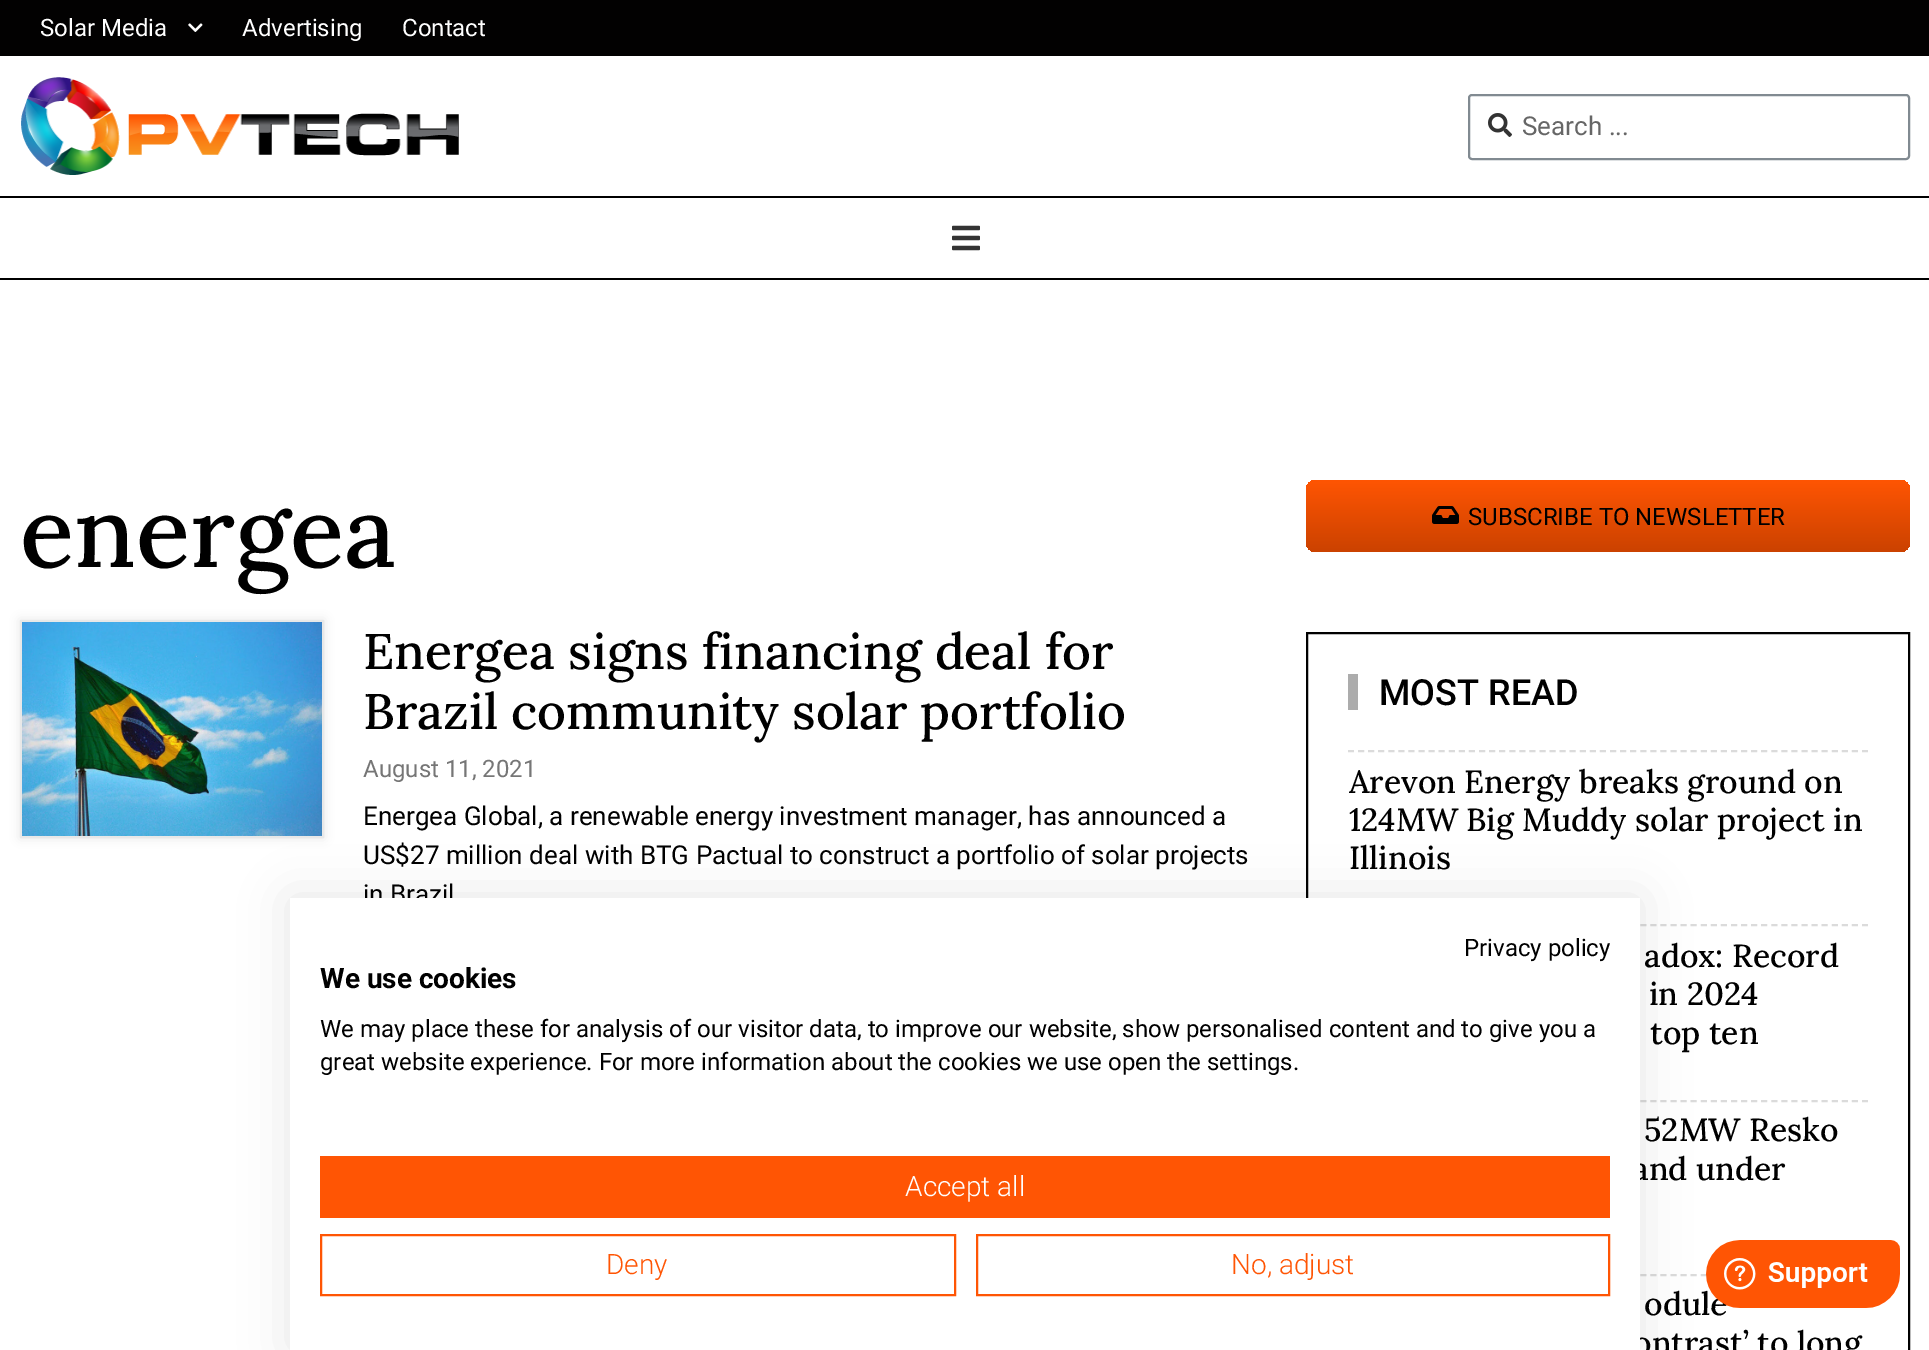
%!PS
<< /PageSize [1929 1350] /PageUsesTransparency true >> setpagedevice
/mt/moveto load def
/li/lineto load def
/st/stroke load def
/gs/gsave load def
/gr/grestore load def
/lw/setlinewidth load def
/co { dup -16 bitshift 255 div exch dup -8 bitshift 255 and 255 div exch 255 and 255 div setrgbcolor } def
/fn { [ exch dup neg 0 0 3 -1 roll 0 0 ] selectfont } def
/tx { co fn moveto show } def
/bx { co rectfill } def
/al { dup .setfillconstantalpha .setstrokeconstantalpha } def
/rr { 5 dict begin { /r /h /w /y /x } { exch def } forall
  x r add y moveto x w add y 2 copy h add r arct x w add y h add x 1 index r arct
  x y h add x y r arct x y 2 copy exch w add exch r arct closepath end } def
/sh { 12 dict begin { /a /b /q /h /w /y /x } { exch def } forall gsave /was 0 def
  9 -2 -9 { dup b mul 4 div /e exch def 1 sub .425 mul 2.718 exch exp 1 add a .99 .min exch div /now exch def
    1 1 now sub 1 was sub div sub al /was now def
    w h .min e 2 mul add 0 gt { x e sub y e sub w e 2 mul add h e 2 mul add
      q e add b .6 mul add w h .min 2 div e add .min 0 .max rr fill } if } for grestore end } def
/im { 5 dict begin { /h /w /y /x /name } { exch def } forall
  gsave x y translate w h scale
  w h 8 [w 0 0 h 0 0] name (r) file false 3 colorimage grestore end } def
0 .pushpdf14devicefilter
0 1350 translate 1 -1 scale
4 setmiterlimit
0 0 1929 1350 16#FFFFFF bx
0 0 1929 56 16#020101 bx
(media/1.raw) 188 23 15 9 im
(media/2.raw) 21 77 438 98 im
16#818A91 co
2 lw
1469 95 440 64 3 rr st
(media/3.raw) 1488 113 24 24 im
0 196 1929 2 16#000000 bx
0 278 1929 2 16#000000 bx
(media/4.raw) 952 225 28 26 im
20 620 304 218 0 5 .1 sh
16#E8E8E8 co
21 621 302 216 rectstroke
(media/5.raw) 22 622 300 214 im
gs 1306 480 604 72 10 rr clip newpath
<< /ShadingType 2 /ColorSpace /DeviceRGB /Coords [1608 480 1608 552] /Extend [true true] /Function << /FunctionType 2 /Domain [0 1] /C0 [1 .333 .012] /C1 [.796 .259 0] /N 1 >> >> shfill gr
(media/6.raw) 1432 506 27 18 im
16#000000 co
1307 633 602 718 rectstroke
1348 674 10 36 16#ACACAC bx
16#DBDBDB co
[6 4.08] 0 setdash
1348 751 mt 1868 751 li st
1348 925 mt 1868 925 li st
1348 1101 mt 1868 1101 li st
1348 1275 mt 1868 1275 li st
16#000000 co
290 898 1350 452 0 24 .1 sh
(Solar Media) 40 36 /Roboto-Regular 24 16#FFFFFF tx
(Advertising) 242 36 /Roboto-Regular 24 16#FFFFFF tx
(Contact) 402 36 /Roboto-Regular 24 16#FFFFFF tx
(Search ...) 1522 135 /Roboto-Regular 26 16#666666 tx
(energea) 20 567 /Lora-Medium 100 16#000000 tx
(Energea signs financing deal for) 363 669 /Lora-Medium 50 16#000000 tx
(Brazil community solar portfolio) 363 729 /Lora-Medium 50 16#000000 tx
(August 11, 2021) 363 777 /Roboto-Regular 24 16#767676 tx
(Energea Global, a renewable energy investment manager, has announced a) 363 825 /Roboto-Regular 26 16#000000 tx
(US$27 million deal with BTG Pactual to construct a portfolio of solar projects) 363 864 /Roboto-Regular 26 16#000000 tx
(in Brazil) 363 903 /Roboto-Regular 26 16#000000 tx
(SUBSCRIBE TO NEWSLETTER) 1468 525 /Roboto-Regular 24 16#000000 tx
(MOST READ) 1379 705 /Roboto-Medium 36 16#000000 tx
(Arevon Energy breaks ground on) 1349 793 /Lora-Medium 32 16#000000 tx
(124MW Big Muddy solar project in) 1349 831 /Lora-Medium 32 16#000000 tx
(Illinois) 1349 869 /Lora-Medium 32 16#000000 tx
(adox: Record) 1644 967 /Lora-Medium 32 16#000000 tx
(in 2024) 1649 1005 /Lora-Medium 32 16#000000 tx
(top ten) 1650 1044 /Lora-Medium 32 16#000000 tx
(52MW Resko) 1644 1141 /Lora-Medium 32 16#000000 tx
(and under) 1632 1180 /Lora-Medium 32 16#000000 tx
(odule) 1644 1315 /Lora-Medium 32 16#000000 tx
(ontrast’ to long) 1633 1354 /Lora-Medium 32 16#000000 tx
290 898 1350 452 16#FFFFFF bx
(Privacy policy) 1464 956 /Roboto-Regular 24 16#000000 tx
(We use cookies) 320 988 /Roboto-Bold 28 16#000000 tx
(We may place these for analysis of our visitor data, to improve our website, show personalised content and to give you a) 320 1037 /Roboto-Regular 24 16#000000 tx
(great website experience. For more information about the cookies we use open the settings.) 320 1070 /Roboto-Regular 24 16#000000 tx
320 1156 1290 62 16#FF5504 bx
(Accept all) 905 1196 /Roboto-Light 28 16#FFFFFF tx
16#FF5504 co
[] 0 setdash
321 1235 634 60 rectstroke
(Deny) 606 1274 /Roboto-Light 28 16#FF5504 tx
977 1235 632 60 rectstroke
(No, adjust) 1231 1274 /Roboto-Light 28 16#FF5504 tx
(media/7.raw) 1706 1240 194 68 im
.poppdf14devicefilter showpage
